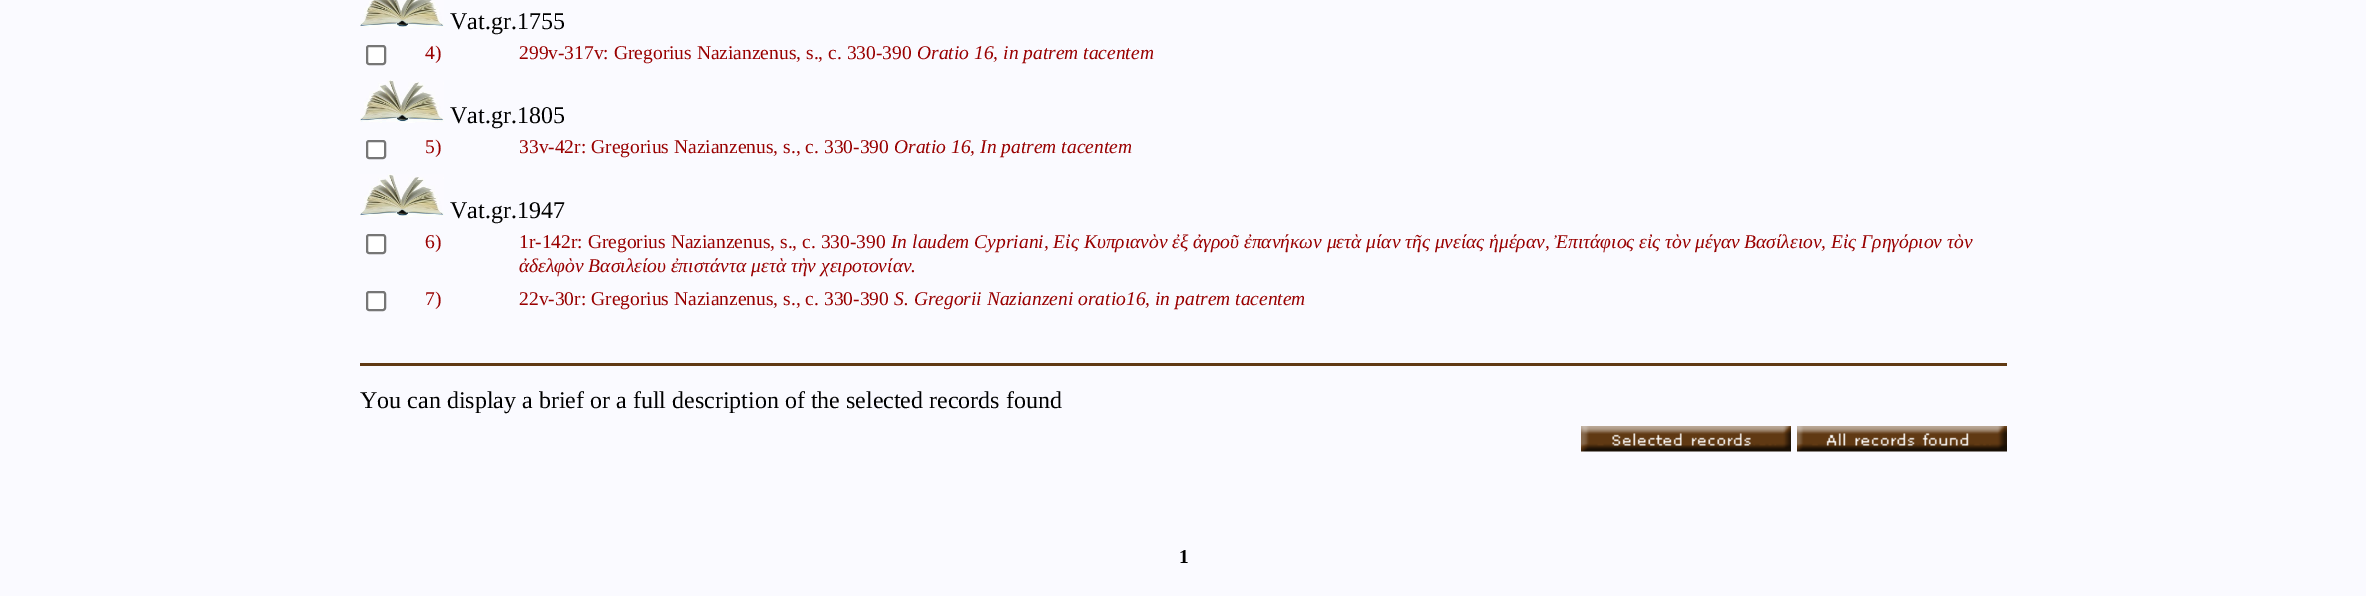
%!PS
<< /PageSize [2366 596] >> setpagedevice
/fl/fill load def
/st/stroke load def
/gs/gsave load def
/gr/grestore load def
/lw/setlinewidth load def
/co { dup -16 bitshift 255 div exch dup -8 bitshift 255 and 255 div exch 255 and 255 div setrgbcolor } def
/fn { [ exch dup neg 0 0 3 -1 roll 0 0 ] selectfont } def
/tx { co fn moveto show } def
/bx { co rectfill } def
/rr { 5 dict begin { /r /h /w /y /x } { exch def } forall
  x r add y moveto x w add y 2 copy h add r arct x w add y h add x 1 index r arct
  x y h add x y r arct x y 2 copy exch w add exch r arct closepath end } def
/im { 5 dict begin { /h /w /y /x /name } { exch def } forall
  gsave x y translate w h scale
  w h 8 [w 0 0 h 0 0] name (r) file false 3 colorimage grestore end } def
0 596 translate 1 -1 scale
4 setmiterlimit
0 0 2366 596 16#FAFAFF bx
(media/1.raw) 360 0 84 28 im
16#FFFFFF co
367 46 18 18 2 rr gs fl gr
16#767676 co
2 lw
st
(media/2.raw) 360 80 84 43 im
16#FFFFFF co
367 141 18 17 2 rr gs fl gr
16#767676 co
st
(media/3.raw) 360 174 84 43 im
16#FFFFFF co
367 235 18 18 2 rr gs fl gr
16#767676 co
st
16#FFFFFF co
367 292 18 18 2 rr gs fl gr
16#767676 co
st
360 363 1647 3 16#603913 bx
(media/4.raw) 1581 426 210 26 im
(media/5.raw) 1797 426 210 26 im
(Vat.gr.1755) 450 29 /LiberationSerif-Regular 24 16#000000 tx
(4\)) 425 59 /LiberationSerif-Regular 19.5 16#990000 tx
(299v-317v: Gregorius Nazianzenus, s., c. 330-390) 519 59 /LiberationSerif-Regular 19.5 16#990000 tx
(Oratio 16, in patrem tacentem) 917 59 /LiberationSerif-Italic 19.5 16#990000 tx
(Vat.gr.1805) 450 123 /LiberationSerif-Regular 24 16#000000 tx
(5\)) 425 153 /LiberationSerif-Regular 19.5 16#990000 tx
(33v-42r: Gregorius Nazianzenus, s., c. 330-390) 519 153 /LiberationSerif-Regular 19.5 16#990000 tx
(Oratio 16, In patrem tacentem) 894 153 /LiberationSerif-Italic 19.5 16#990000 tx
(Vat.gr.1947) 450 218 /LiberationSerif-Regular 24 16#000000 tx
(6\)) 425 248 /LiberationSerif-Regular 19.5 16#990000 tx
(1r-142r: Gregorius Nazianzenus, s., c. 330-390) 519 248 /LiberationSerif-Regular 19.5 16#990000 tx
(In laudem Cypriani, Eἰς Κυπριανὸν ἐξ ἀγροῦ ἐπανήκων μετὰ μίαν τῆς μνείας ἡμέραν, Ἐπιτάφιος εἰς τὸν μέγαν Βασίλειον, Eἰς Γρηγόριον τὸν) 891 248 /LiberationSerif-Italic 19.5 16#990000 tx
(ἀδελφὸν Βασιλείου ἐπιστάντα μετὰ τὴν χειροτονίαν.) 519 272 /LiberationSerif-Italic 19.5 16#990000 tx
(7\)) 425 305 /LiberationSerif-Regular 19.5 16#990000 tx
(22v-30r: Gregorius Nazianzenus, s., c. 330-390) 519 305 /LiberationSerif-Regular 19.5 16#990000 tx
(S. Gregorii Nazianzeni oratio16, in patrem tacentem) 894 305 /LiberationSerif-Italic 19.5 16#990000 tx
(You can display a brief or a full description of the selected records found) 360 408 /LiberationSerif-Regular 24 16#000000 tx
(1) 1179 563 /LiberationSerif-Bold 19.5 16#000000 tx
showpage
